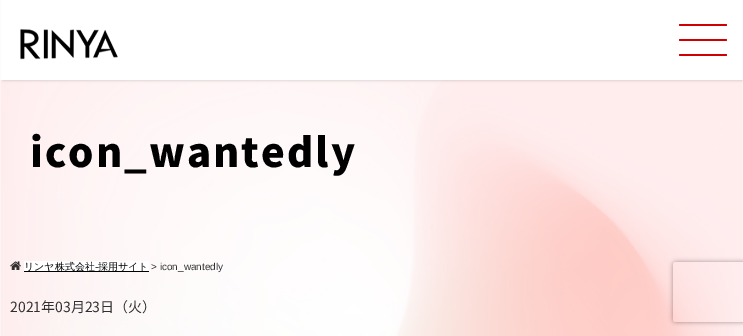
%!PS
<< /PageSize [743 336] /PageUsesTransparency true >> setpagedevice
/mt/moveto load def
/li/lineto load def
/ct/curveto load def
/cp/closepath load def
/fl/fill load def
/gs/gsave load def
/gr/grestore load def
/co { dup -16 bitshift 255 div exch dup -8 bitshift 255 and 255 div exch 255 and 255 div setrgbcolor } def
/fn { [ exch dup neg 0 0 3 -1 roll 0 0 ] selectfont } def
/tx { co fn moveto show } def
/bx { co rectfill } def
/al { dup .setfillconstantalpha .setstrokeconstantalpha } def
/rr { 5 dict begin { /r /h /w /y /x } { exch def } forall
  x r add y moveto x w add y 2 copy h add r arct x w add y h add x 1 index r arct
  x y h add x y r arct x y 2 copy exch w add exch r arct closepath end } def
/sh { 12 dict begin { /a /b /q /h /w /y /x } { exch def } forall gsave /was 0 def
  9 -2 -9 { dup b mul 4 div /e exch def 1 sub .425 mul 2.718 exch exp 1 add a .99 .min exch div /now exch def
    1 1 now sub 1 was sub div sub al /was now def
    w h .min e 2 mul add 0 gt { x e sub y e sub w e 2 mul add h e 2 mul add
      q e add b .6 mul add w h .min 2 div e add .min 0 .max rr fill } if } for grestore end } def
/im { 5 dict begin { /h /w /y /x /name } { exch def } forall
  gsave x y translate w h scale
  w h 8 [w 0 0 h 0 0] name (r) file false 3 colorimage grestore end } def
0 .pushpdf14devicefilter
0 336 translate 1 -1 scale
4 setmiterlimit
0 0 743 336 16#FFFFFF bx
gs
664 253 mt 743 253 li 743 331 li 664 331 li cp 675 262 mt 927 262 li 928 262 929 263 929 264 ct 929 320 li 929 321 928 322 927 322 ct 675 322 li 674 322 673 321 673 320 ct 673 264 li 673 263 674 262 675 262 ct cp eoclip newpath
16#808080 co
673 262 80 60 2 2.5 1 sh
gr
(media/2.raw) 0 80 743 256 im
16#000000 co
3 0 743 80 0 1.5 .2 sh
1 0 742 80 16#FFFFFF bx
(media/1.raw) 20 29 98 31 im
16#CF0000 co
679 39 48 2 1 rr fl
679 24 48 2 1 rr fl
679 54 48 2 1 rr fl
(media/3.raw) 10 261 11 9 im
24 261 125 10 16#FFFFFF bx
24 271 125 1 16#000000 bx
/NotoSansJP-Black 40 fn
30 167 mt 2 0 (icon_wantedly) ashow
(リンヤ株式会社) 24 270 /WenQuanYiZenHei-Medium 10 16#000000 tx
(-) 95 270 /LiberationSans-Regular 10 16#000000 tx
(採用サイト) 98 270 /WenQuanYiZenHei-Medium 10 16#000000 tx
(> icon_wantedly) 151 270 /LiberationSans-Regular 10 16#303030 tx
(2021年03月23日（火）) 10 312 /NotoSansJP-Regular 14 16#303030 tx
.poppdf14devicefilter showpage
